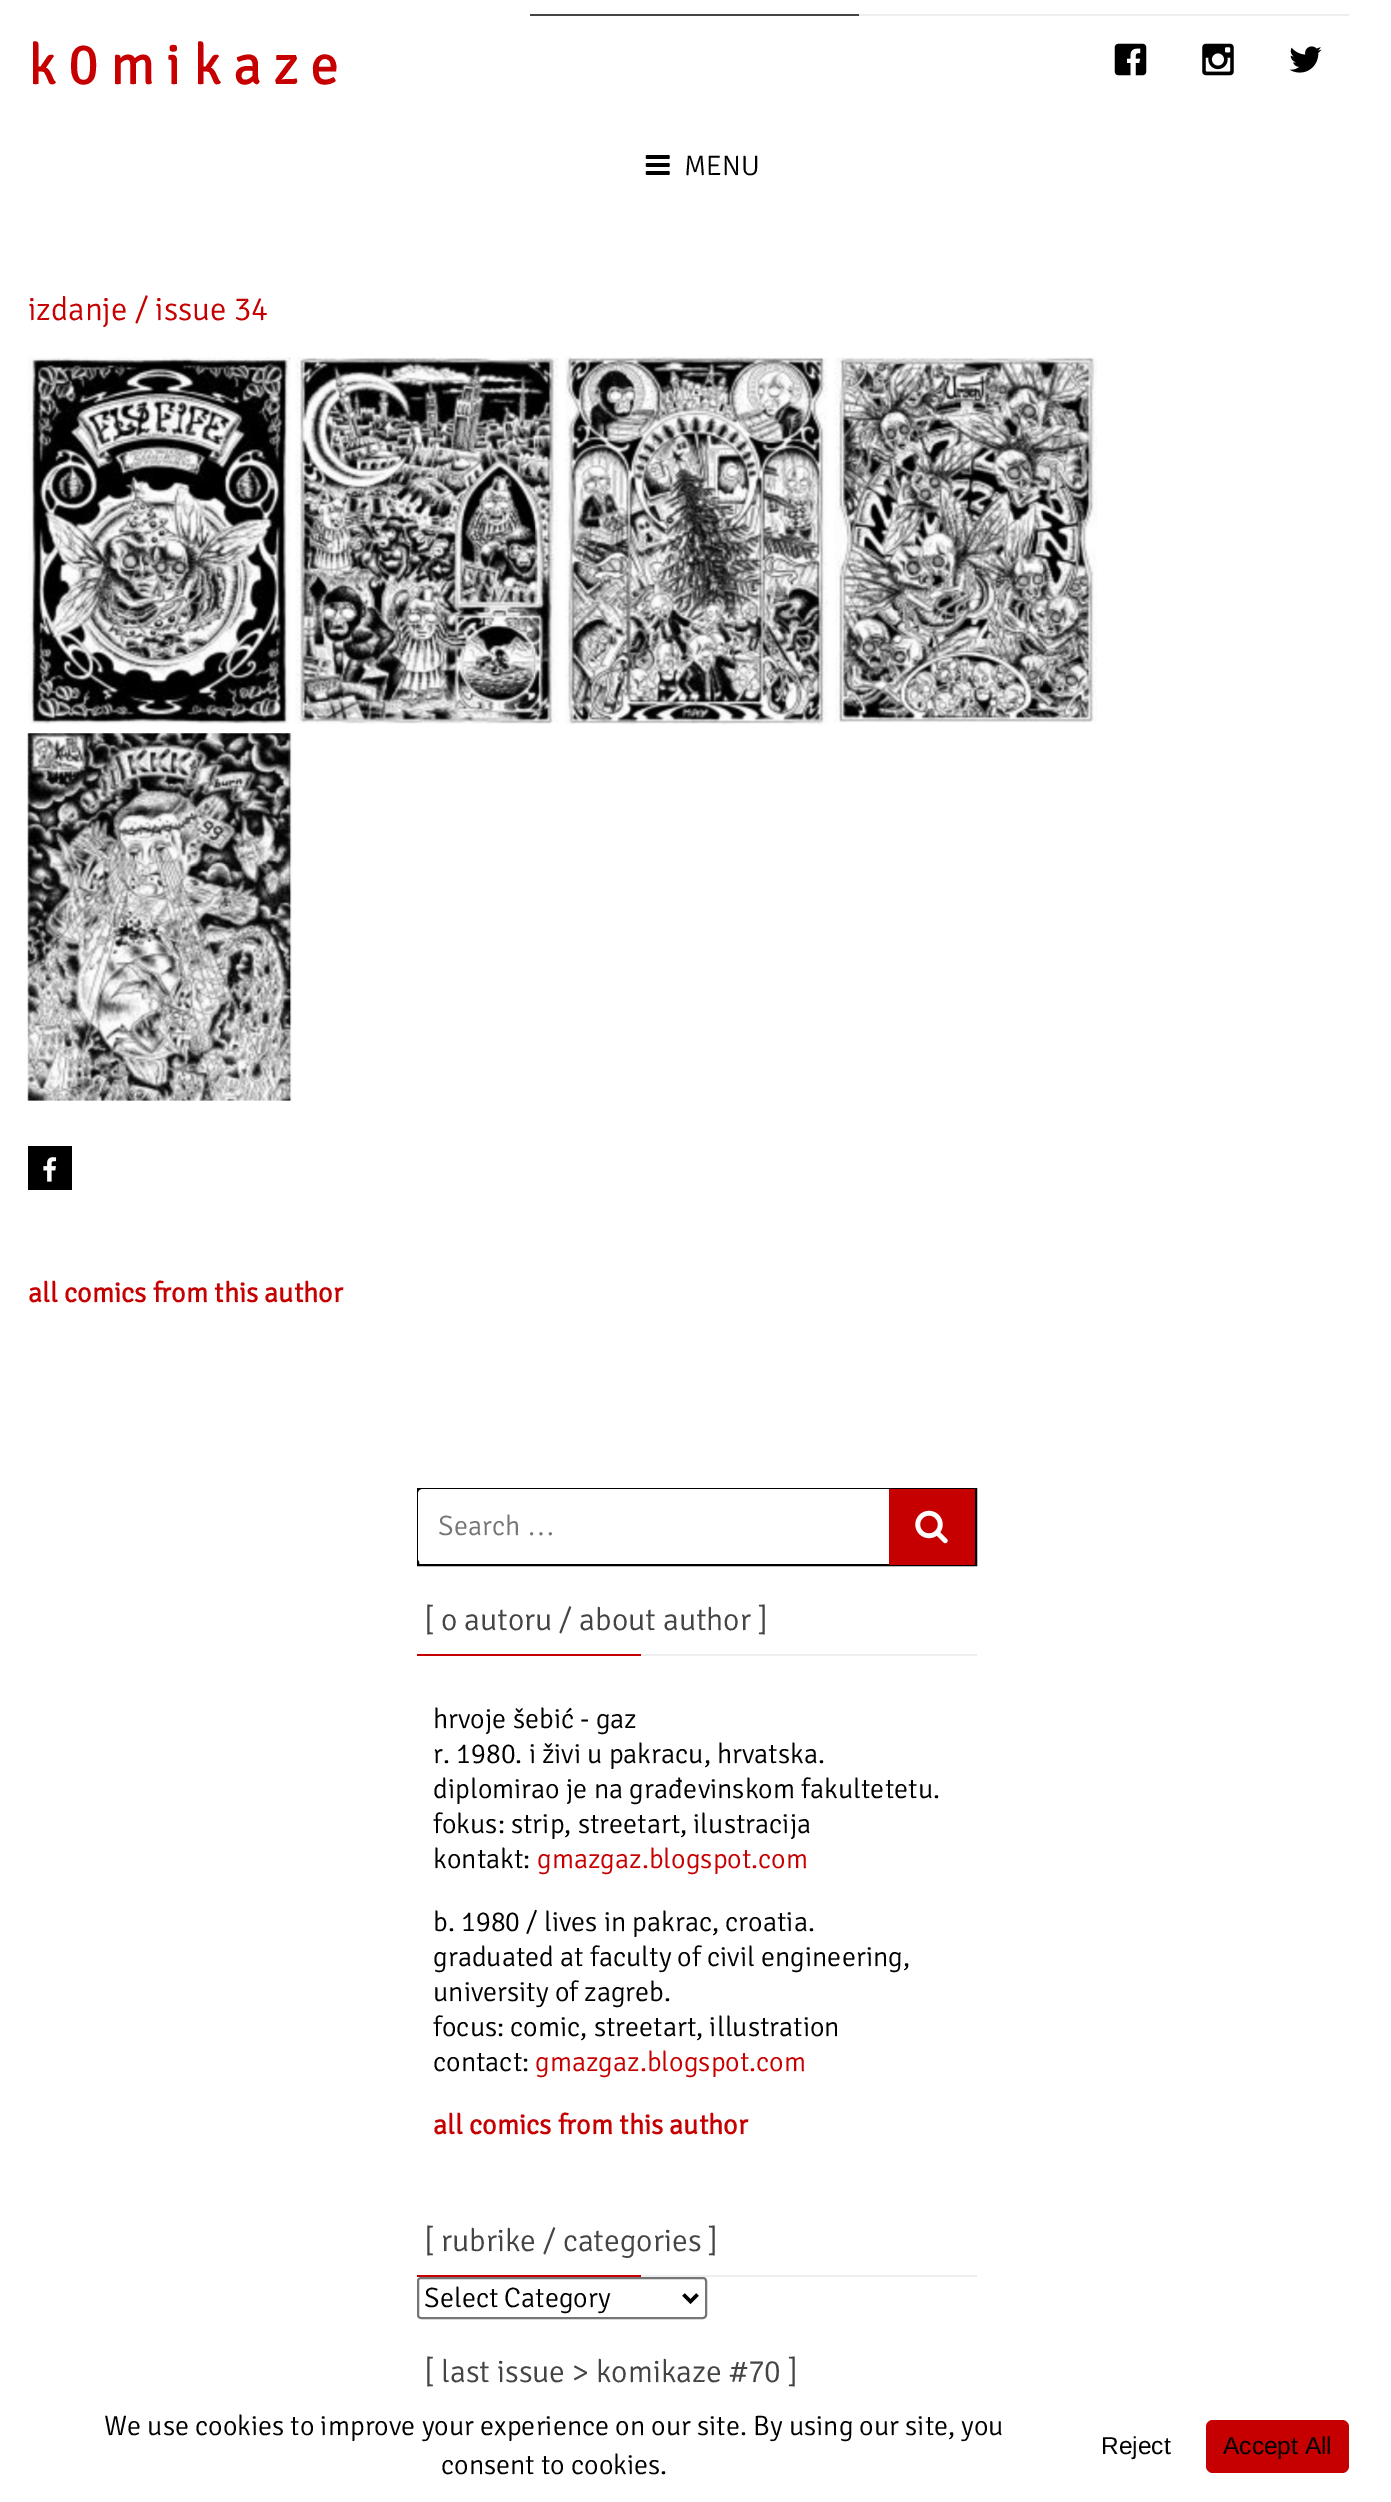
%!PS
<< /PageSize [1391 2502] >> setpagedevice
/mt/moveto load def
/li/lineto load def
/ct/curveto load def
/cp/closepath load def
/fl/fill load def
/st/stroke load def
/lw/setlinewidth load def
/co { dup -16 bitshift 255 div exch dup -8 bitshift 255 and 255 div exch 255 and 255 div setrgbcolor } def
/fn { [ exch dup neg 0 0 3 -1 roll 0 0 ] selectfont } def
/tx { co fn moveto show } def
/bx { co rectfill } def
/rr { 5 dict begin { /r /h /w /y /x } { exch def } forall
  x r add y moveto x w add y 2 copy h add r arct x w add y h add x 1 index r arct
  x y h add x y r arct x y 2 copy exch w add exch r arct closepath end } def
/im { 5 dict begin { /h /w /y /x /name } { exch def } forall
  gsave x y translate w h scale
  w h 8 [w 0 0 h 0 0] name (r) file false 3 colorimage grestore end } def
0 2502 translate 1 -1 scale
4 setmiterlimit
0 0 1391 2502 16#FFFFFF bx
859 14 490 2 16#EEEEEE bx
530 14 329 2 16#444444 bx
(media/1.raw) 1114 43 33 33 im
(media/2.raw) 1202 43 32 33 im
(media/3.raw) 1289 46 33 27 im
(media/4.raw) 645 155 25 20 im
(media/5.raw) 28 357 263 367 im
(media/6.raw) 295 357 263 367 im
(media/7.raw) 565 356 263 369 im
(media/8.raw) 834 357 263 366 im
(media/9.raw) 27 733 265 368 im
28 1146 44 44 16#000000 bx
(media/10.raw) 43 1157 14 25 im
2 lw
418 1489 558 76 rectstroke
16#FFFFFF co
423 1489 mt 975 1489 li 975 1563 li 423 1563 li 420 1563 418 1561 418 1558 ct 418 1494 li 418 1491 420 1489 423 1489 ct cp fl
889 1489 86 76 16#C60000 bx
(media/11.raw) 915 1510 33 34 im
641 1654 336 2 16#EEEEEE bx
417 1654 224 2 16#C60000 bx
641 2275 336 2 16#EEEEEE bx
417 2275 224 2 16#C60000 bx
16#767676 co
418 2278 288 40 3 rr st
16#000000 co
3.5 lw
683.5 2294.5 mt 690.5 2301.5 li 697.5 2294.5 li st
16#C60000 co
1206 2420 143 53 7 rr fl
(k 0 m i k a z e) 28 84 /Signika-Bold 56 16#C60000 tx
(MENU) 684 175 /Signika-Light 28 16#000000 tx
(izdanje / issue 34) 28 320 /Signika-Light 32.75 16#C60000 tx
(all comics from this author) 28 1302 /Signika-Bold 28 16#C60000 tx
(Search) 438 1535 /Signika-Light 28 16#757575 tx
(…) 527 1535 /LiberationSerif-Regular 28 16#757575 tx
([ o autoru / about author ]) 424 1630 /Signika-Light 31.5 16#444444 tx
(hrvoje šebić - gaz) 433 1728 /Signika-Light 28 16#000000 tx
(r. 1980. i živi u pakracu, hrvatska.) 433 1763 /Signika-Light 28 16#000000 tx
(diplomirao je na građevinskom fakultetetu.) 433 1798 /Signika-Light 28 16#000000 tx
(fokus: strip, streetart, ilustracija) 433 1833 /Signika-Light 28 16#000000 tx
(kontakt:) 433 1868 /Signika-Light 28 16#000000 tx
(gmazgaz.blogspot.com) 537 1868 /Signika-Light 28 16#C60000 tx
(b. 1980 / lives in pakrac, croatia.) 433 1931 /Signika-Light 28 16#000000 tx
(graduated at faculty of civil engineering,) 433 1966 /Signika-Light 28 16#000000 tx
(university of zagreb.) 433 2001 /Signika-Light 28 16#000000 tx
(focus: comic, streetart, illustration) 433 2036 /Signika-Light 28 16#000000 tx
(contact:) 433 2071 /Signika-Light 28 16#000000 tx
(gmazgaz.blogspot.com) 535 2071 /Signika-Light 28 16#C60000 tx
(all comics from this author) 433 2134 /Signika-Bold 28 16#C60000 tx
([ rubrike / categories ]) 424 2251 /Signika-Light 31.5 16#444444 tx
(Select Category) 424 2307 /Signika-Light 28 16#000000 tx
([ last issue > komikaze #70 ]) 424 2382 /Signika-Light 31.5 16#444444 tx
(We use cookies to improve your experience on our site. By using our site, you) 104 2435 /Signika-Light 28 16#000000 tx
(consent to cookies.) 441 2474 /Signika-Light 28 16#000000 tx
(Reject) 1101 2454 /LiberationSans-Regular 24.5 16#000000 tx
(Accept All) 1223 2454 /LiberationSans-Regular 24.5 16#000000 tx
showpage
